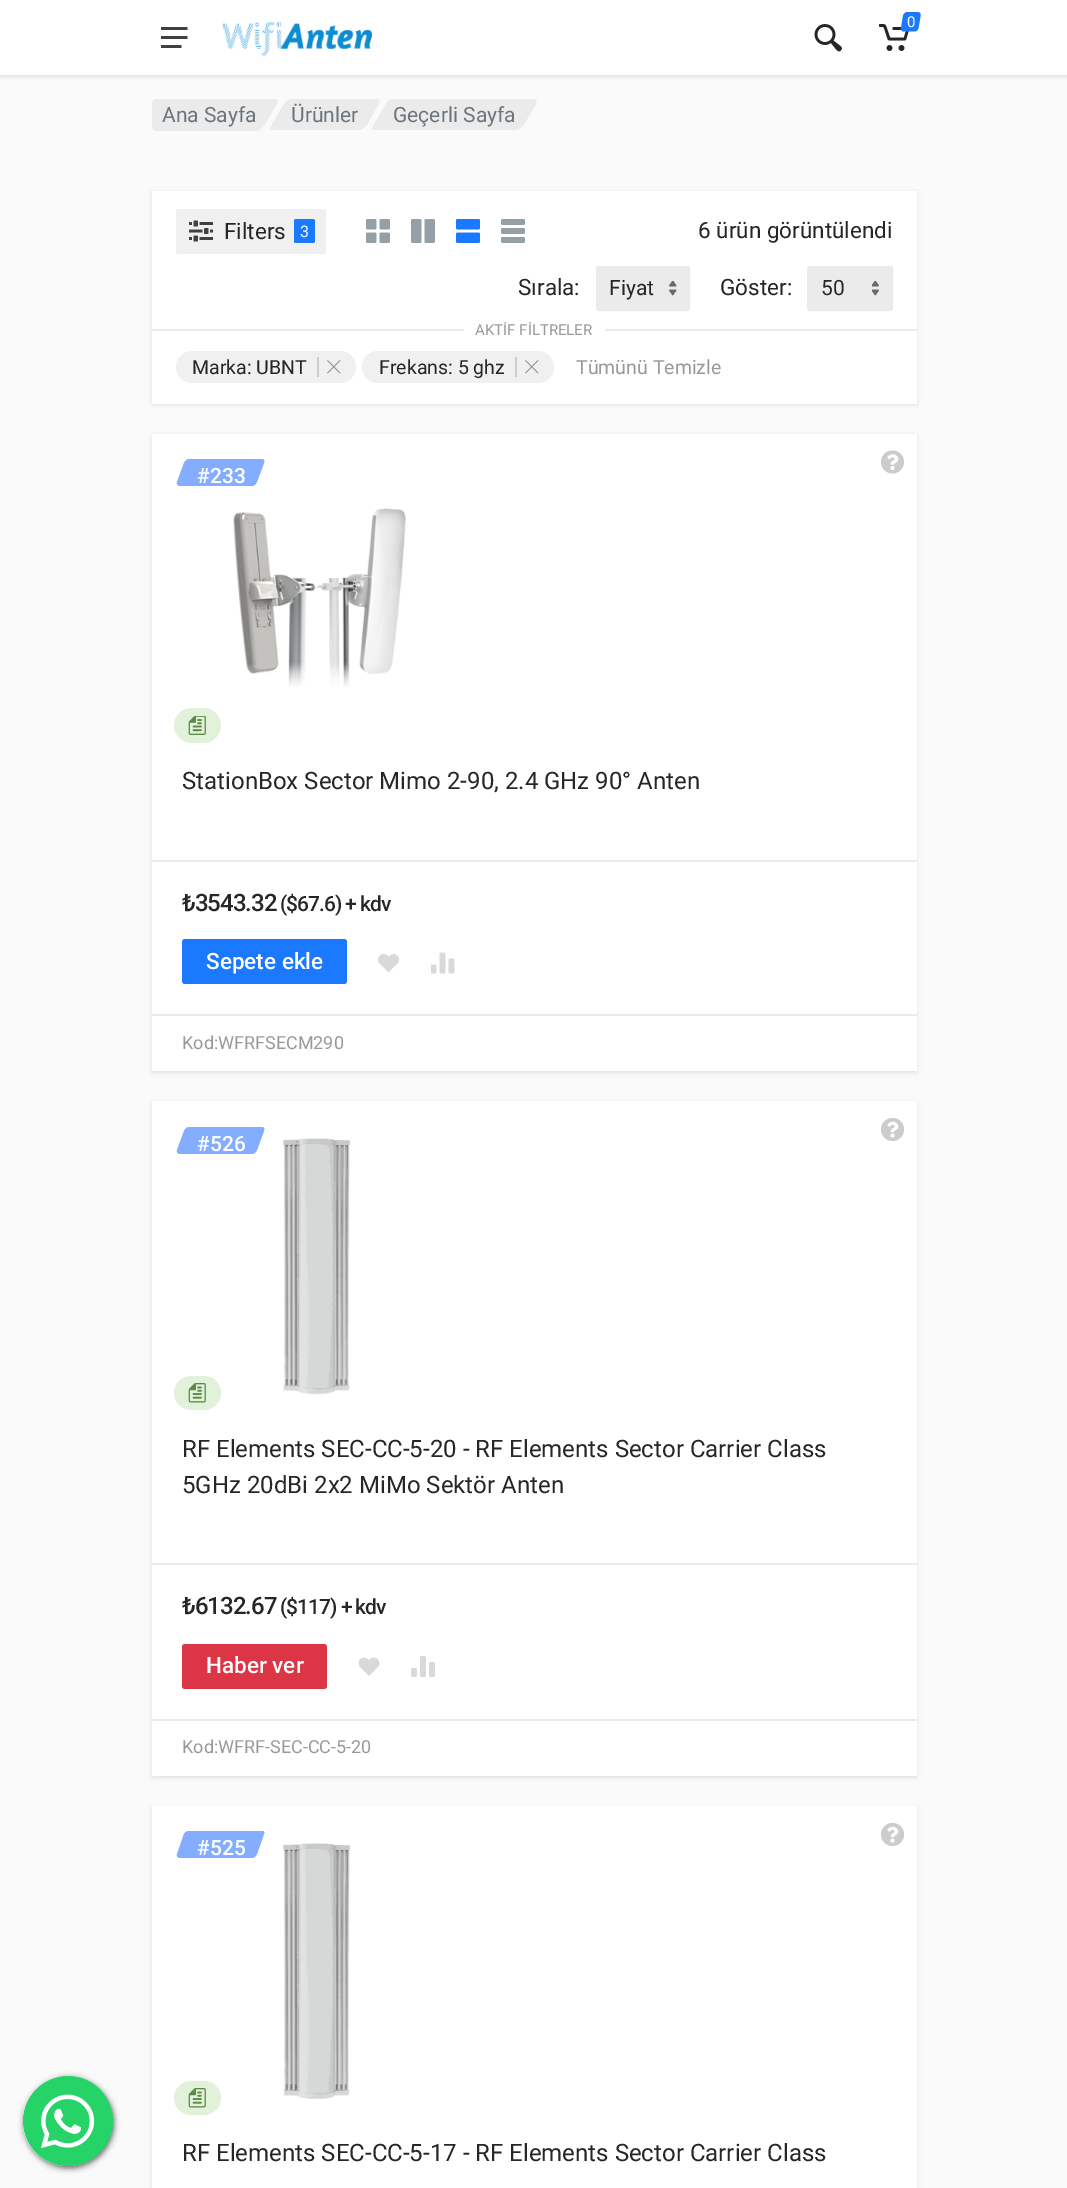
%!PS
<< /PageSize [1067 2188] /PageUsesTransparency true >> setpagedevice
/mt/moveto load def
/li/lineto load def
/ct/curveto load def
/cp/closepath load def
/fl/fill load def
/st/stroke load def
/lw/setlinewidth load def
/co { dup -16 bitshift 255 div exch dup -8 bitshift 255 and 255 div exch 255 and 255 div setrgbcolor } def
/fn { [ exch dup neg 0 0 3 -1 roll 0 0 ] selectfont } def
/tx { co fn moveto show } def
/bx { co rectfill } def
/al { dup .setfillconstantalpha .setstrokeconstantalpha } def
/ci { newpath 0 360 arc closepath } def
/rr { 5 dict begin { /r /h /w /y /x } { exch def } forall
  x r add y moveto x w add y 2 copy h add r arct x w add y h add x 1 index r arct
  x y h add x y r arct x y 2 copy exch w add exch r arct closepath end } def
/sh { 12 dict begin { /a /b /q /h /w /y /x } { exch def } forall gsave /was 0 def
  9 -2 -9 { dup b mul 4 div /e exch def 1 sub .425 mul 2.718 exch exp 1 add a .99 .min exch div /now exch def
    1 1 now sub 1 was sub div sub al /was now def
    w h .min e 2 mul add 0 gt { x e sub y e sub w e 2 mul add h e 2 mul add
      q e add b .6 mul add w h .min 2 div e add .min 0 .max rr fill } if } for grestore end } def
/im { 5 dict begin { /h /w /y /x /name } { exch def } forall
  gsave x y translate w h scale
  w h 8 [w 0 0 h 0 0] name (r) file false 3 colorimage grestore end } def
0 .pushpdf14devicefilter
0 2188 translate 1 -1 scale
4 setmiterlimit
0 0 1067 2188 16#FAFAFA bx
16#000000 co
0 2 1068 75 0 2 .09 sh
0 0 1067 75 16#FFFFFF bx
(media/1.raw) 161 27 27 21 im
(media/2.raw) 222 21 150 36 im
(media/3.raw) 879 24 30 27 im
16#1A79FF co
907.5 12 mt 917.5 12 li 919.5 12 921 13.5 920.5 16 ct 918.5 28 li 918 30 916 31.5 914 31.5 ct 904 31.5 li 902 31.5 900.5 30 901 28 ct 903 16 li 903.5 13.5 905.5 12 907.5 12 ct cp fl
(media/4.raw) 814 24 28 28 im
16#3C3C3C co
24 2078 90 90 45 3 .8 sh
16#25D366 co
68 2121 45 ci fl
(media/5.raw) 23 2076 89 90 im
16#EBEBEB co
174 99 mt 275 99 li 277 99 278 101 277 104 ct 264 126 li 262 128 259 130 257 130 ct 156 130 li 153 130 153 128 154 126 ct 167 104 li 169 101 172 99 174 99 ct cp fl
152 99 109 32 5 rr fl
291 99 mt 377 99 li 379 99 380 101 379 104 ct 366 126 li 364 128 361 130 358 130 ct 273 130 li 270 130 270 128 271 126 ct 284 104 li 286 101 289 99 291 99 ct cp fl
393 99 mt 534 99 li 536 99 537 101 536 104 ct 523 126 li 521 128 518 130 516 130 ct 375 130 li 372 130 372 128 373 126 ct 386 104 li 387 101 391 99 393 99 ct cp fl
16#000000 co
152 192 765 213 0 2 .09 sh
152 191 765 213 16#FFFFFF bx
16#F0F0F0 co
176 209 150 45 3 rr fl
(media/6.raw) 189 220 24 22 im
16#1A79FF co
294 219 21 24 2 rr fl
(media/7.raw) 366 219 24 24 im
(media/8.raw) 411 219 24 24 im
(media/9.raw) 456 219 24 24 im
(media/10.raw) 501 219 24 24 im
16#EBEBEB co
596 266 94 45 3 rr fl
(media/11.raw) 669 281 8 15 im
2 lw
597 267 92 43 2 rr st
807 266 86 45 3 rr fl
(media/12.raw) 872 281 7 15 im
808 267 84 43 2 rr st
152 329 765 2 16#EBEBEB bx
464 329 141 2 16#FFFFFF bx
16#F0F0F0 co
176 351 180 32 16 rr fl
317 357 2 20 16#CCCCCC bx
(media/13.raw) 327 360 14 14 im
16#F0F0F0 co
362 351 192 32 16 rr fl
515 357 2 20 16#CCCCCC bx
(media/13.raw) 525 360 14 14 im
16#000000 co
152 435 765 638 0 2 .09 sh
152 434 765 637 16#FFFFFF bx
(media/14.raw) 881 450 23 24 im
16#85ADFF co
189 459 mt 262 459 li 264 459 265 461 264 463 ct 257 482 li 256 484 254 486 252 486 ct 180 486 li 178 486 176 484 177 482 ct 184 463 li 185 461 187 459 189 459 ct cp fl
152 1014 765 2 16#EBEBEB bx
(media/15.raw) 233 508 173 179 im
16#E2F2DA co
174 708 47 35 17.5 rr fl
(media/16.raw) 188 716 18 19 im
152 860 765 2 16#EBEBEB bx
16#1A79FF co
182 939 165 45 3 rr fl
(media/17.raw) 378 954 21 18 im
(media/18.raw) 431 952 24 22 im
16#000000 co
152 1103 765 675 0 2 .09 sh
152 1101 765 675 16#FFFFFF bx
(media/19.raw) 880 1117 25 25 im
16#85ADFF co
189 1127 mt 262 1127 li 264 1127 265 1129 264 1131 ct 257 1150 li 256 1152 254 1154 252 1154 ct 180 1154 li 178 1154 176 1152 177 1150 ct 184 1131 li 185 1129 187 1127 189 1127 ct cp fl
152 1719 765 2 16#EBEBEB bx
16#E2F2DA co
174 1376 47 34 17 rr fl
(media/20.raw) 188 1383 18 20 im
(media/21.raw) 283 1138 67 257 im
152 1563 765 2 16#EBEBEB bx
16#DC3545 co
182 1644 145 45 3 rr fl
(media/22.raw) 358 1657 22 19 im
(media/23.raw) 411 1656 24 21 im
16#000000 co
152 1808 765 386 0 2 .09 sh
152 1806 765 382 16#FFFFFF bx
(media/19.raw) 880 1822 25 25 im
16#85ADFF co
189 1831 mt 262 1831 li 264 1831 265 1832 264 1834 ct 257 1854 li 256 1856 254 1858 252 1858 ct 180 1858 li 178 1858 176 1856 177 1854 ct 184 1834 li 185 1832 187 1831 189 1831 ct cp fl
16#E2F2DA co
174 2081 47 34 17 rr fl
(media/20.raw) 188 2088 18 20 im
(media/24.raw) 283 1843 67 256 im
(0) 907 27 /Roboto-Regular 15 16#FFFFFF tx
(Ana Sayfa) 162 122 /Roboto-Regular 21 16#6C757D tx
(Ürünler) 291 122 /Roboto-Regular 21 16#6C757D tx
(Geçerli Sayfa) 393 122 /Roboto-Regular 21 16#6C757D tx
(Filters) 224 239 /Roboto-Regular 22.5 16#262626 tx
(3) 300 237 /Roboto-Regular 16 16#FFFFFF tx
(6 ürün görüntülendi) 698 238 /Roboto-Regular 22.5 16#262626 tx
(Sırala:) 518 295 /Roboto-Regular 22.5 16#262626 tx
(Fiyat) 609 295 /Roboto-Regular 21 16#262626 tx
(Göster:) 720 295 /Roboto-Regular 22.5 16#262626 tx
(50) 821 295 /Roboto-Regular 21 16#262626 tx
(AKTİF FİLTRELER) 475 335 /Roboto-Regular 15 16#999999 tx
(Marka: UBNT) 192 374 /Roboto-Regular 19.5 16#262626 tx
(Frekans: 5 ghz) 379 374 /Roboto-Regular 19.5 16#262626 tx
(Tümünü Temizle) 576 374 /Roboto-Regular 19.5 16#999999 tx
(#233) 197 483 /Roboto-Medium 21 16#FFFFFF tx
(StationBox Sector Mimo 2-90, 2.4 GHz 90° Anten) 182 789 /Roboto-Regular 24 16#262626 tx
(Kod:WFRFSECM290) 182 1049 /Roboto-Regular 18 16#999999 tx
/Roboto-Medium 24 fn
16#262626 co
182 911 mt -1 0 (₺3543.32) ashow
/Roboto-Medium 21 fn
280 911 mt -1 0 (\($67.6\) + kdv) ashow
(Sepete ekle) 206 969 /Roboto-Medium 22.5 16#FFFFFF tx
(#526) 197 1151 /Roboto-Medium 21 16#FFFFFF tx
(RF Elements SEC-CC-5-20 - RF Elements Sector Carrier Class) 182 1457 /Roboto-Regular 24 16#262626 tx
(5GHz 20dBi 2x2 MiMo Sektör Anten) 182 1493 /Roboto-Regular 24 16#262626 tx
(Kod:WFRF-SEC-CC-5-20) 182 1753 /Roboto-Regular 18 16#999999 tx
/Roboto-Medium 24 fn
16#262626 co
182 1614 mt -1 0 (₺6132.67) ashow
/Roboto-Medium 21 fn
280 1614 mt -1 0 (\($117\) + kdv) ashow
(Haber ver) 206 1673 /Roboto-Medium 22.5 16#FFFFFF tx
(#525) 197 1855 /Roboto-Medium 21 16#FFFFFF tx
(RF Elements SEC-CC-5-17 - RF Elements Sector Carrier Class) 182 2161 /Roboto-Regular 24 16#262626 tx
.poppdf14devicefilter showpage
